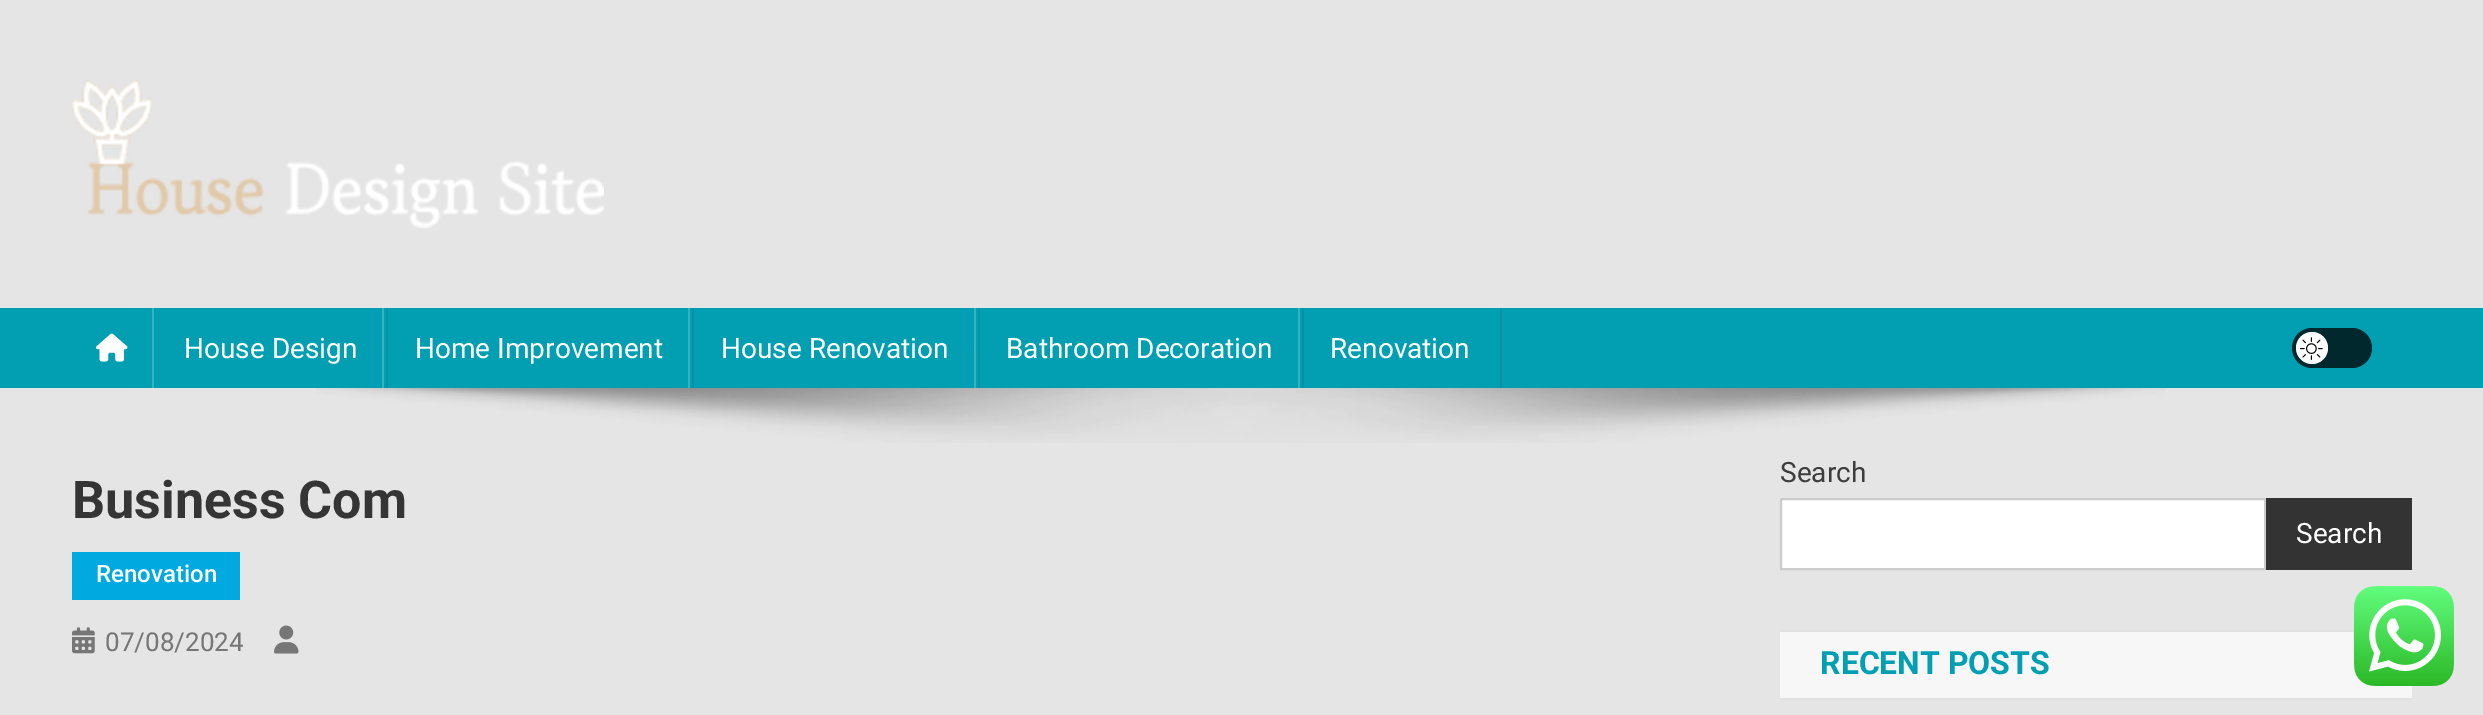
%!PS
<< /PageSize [2483 715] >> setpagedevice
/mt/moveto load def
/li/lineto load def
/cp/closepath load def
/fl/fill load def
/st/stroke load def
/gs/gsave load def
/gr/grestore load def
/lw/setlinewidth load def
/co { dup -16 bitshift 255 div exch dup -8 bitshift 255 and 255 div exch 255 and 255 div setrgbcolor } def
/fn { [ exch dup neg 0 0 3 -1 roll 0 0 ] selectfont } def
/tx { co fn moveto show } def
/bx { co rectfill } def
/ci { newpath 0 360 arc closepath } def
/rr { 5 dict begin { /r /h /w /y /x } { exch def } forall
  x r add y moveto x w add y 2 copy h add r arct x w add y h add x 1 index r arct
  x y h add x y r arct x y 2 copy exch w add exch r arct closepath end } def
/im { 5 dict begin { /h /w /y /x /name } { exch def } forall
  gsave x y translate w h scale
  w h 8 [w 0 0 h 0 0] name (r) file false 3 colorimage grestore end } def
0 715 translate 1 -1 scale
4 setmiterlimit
0 0 2483 715 16#E5E5E5 bx
(media/1.raw) 72 80 532 148 im
0 308 2483 80 16#029FB2 bx
(media/2.raw) 96 333 32 29 im
386 308 2 80 16#0292A4 bx
152 308 2 80 16#35B2C1 bx
692 308 2 80 16#0292A4 bx
382 308 2 80 16#35B2C1 bx
978 308 2 80 16#0292A4 bx
688 308 2 80 16#35B2C1 bx
1302 308 2 80 16#0292A4 bx
974 308 2 80 16#35B2C1 bx
1500 308 2 80 16#0292A4 bx
1298 308 2 80 16#35B2C1 bx
16#01282D co
2292 328 80 40 20 rr fl
16#FFFFFF co
2312 348 16 ci fl
(media/3.raw) 2300 337 23 23 im
(media/4.raw) 316 388 1849 55 im
72 552 168 48 16#00A9E0 bx
(media/5.raw) 72 627 23 27 im
(media/6.raw) 274 625 25 29 im
16#FFFFFF co
1781 499 mt 2265 499 li 2265 569 li 1781 569 li cp gs fl gr
16#CCCCCC co
2 lw
st
2266 498 146 72 16#333333 bx
1780 632 632 66 16#F7F7F7 bx
1780 630 574 2 16#E1E1E1 bx
1780 698 632 2 16#E1E1E1 bx
(media/7.raw) 2354 586 100 100 im
(House Design) 184 358 /Roboto-Regular 28 16#FFFFFF tx
(Home Improvement) 415 358 /Roboto-Regular 28 16#FFFFFF tx
(House Renovation) 721 358 /Roboto-Regular 28 16#FFFFFF tx
(Bathroom Decoration) 1006 358 /Roboto-Regular 28 16#FFFFFF tx
(Renovation) 1330 358 /Roboto-Regular 28 16#FFFFFF tx
(Business Com) 72 518 /Roboto-Bold 52 16#353535 tx
(Renovation) 96 582 /Roboto-Medium 24 16#FFFFFF tx
(07/08/2024) 105 651 /Roboto-Regular 26 16#767676 tx
(Search) 1780 482 /Roboto-Regular 28 16#3D3D3D tx
(Search) 2296 543 /Roboto-Regular 28 16#FFFFFF tx
(RECENT POSTS) 1820 674 /Roboto-Bold 32 16#029FB2 tx
showpage
